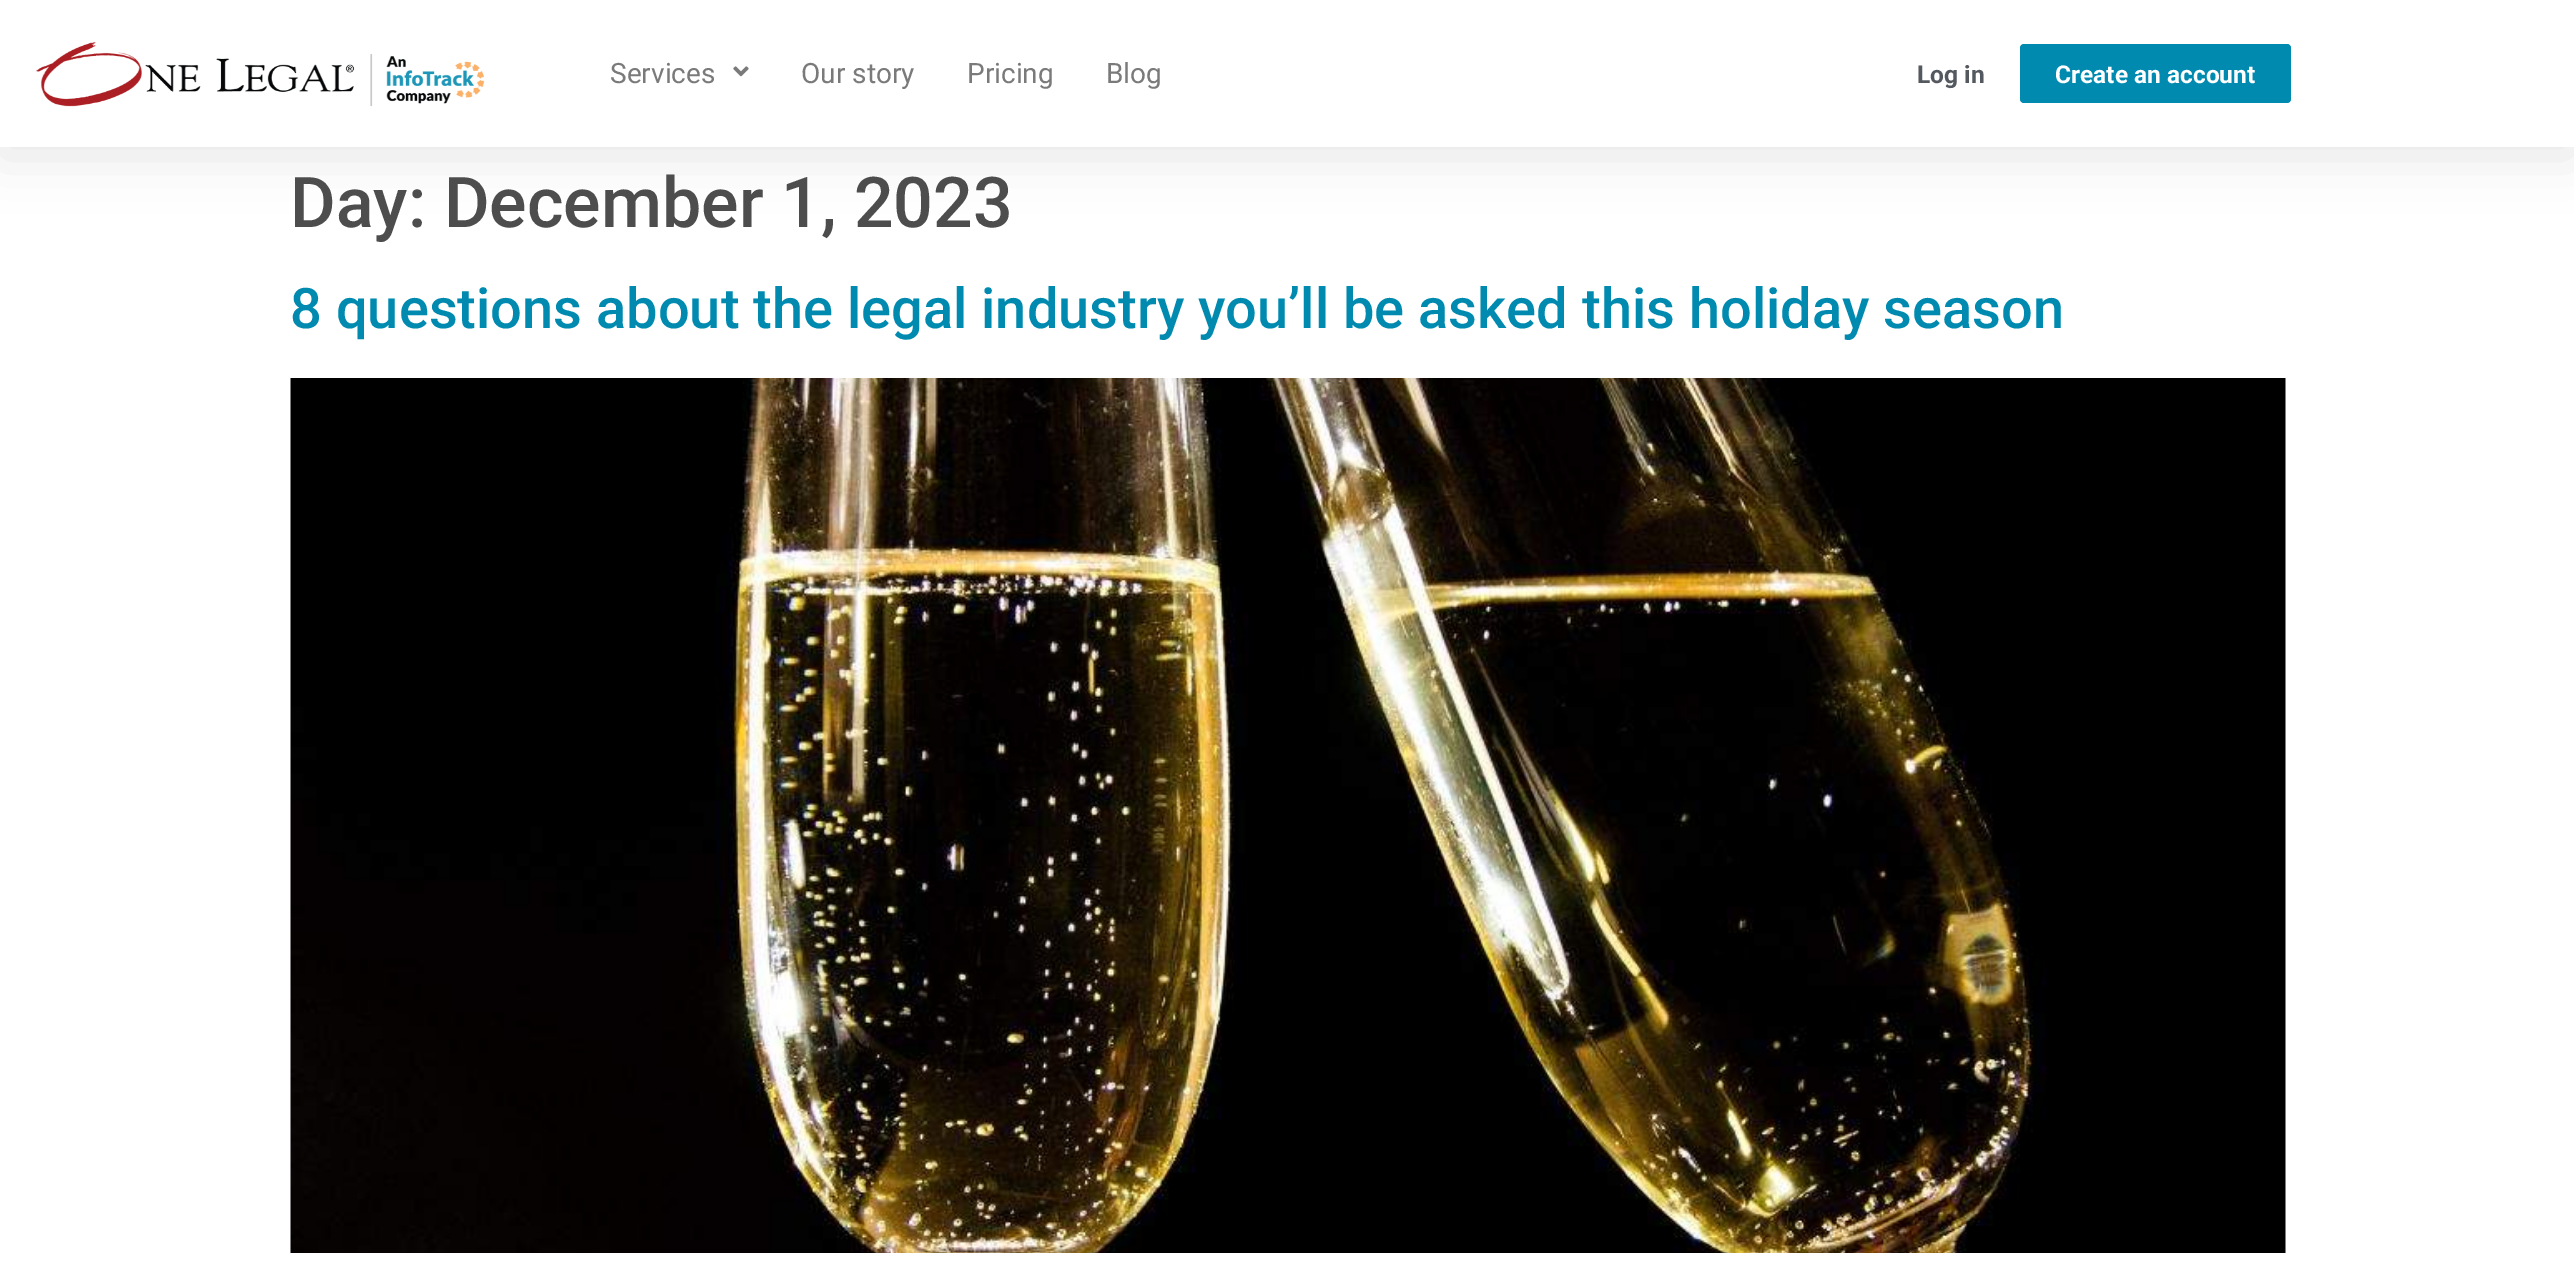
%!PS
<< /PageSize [2574 1274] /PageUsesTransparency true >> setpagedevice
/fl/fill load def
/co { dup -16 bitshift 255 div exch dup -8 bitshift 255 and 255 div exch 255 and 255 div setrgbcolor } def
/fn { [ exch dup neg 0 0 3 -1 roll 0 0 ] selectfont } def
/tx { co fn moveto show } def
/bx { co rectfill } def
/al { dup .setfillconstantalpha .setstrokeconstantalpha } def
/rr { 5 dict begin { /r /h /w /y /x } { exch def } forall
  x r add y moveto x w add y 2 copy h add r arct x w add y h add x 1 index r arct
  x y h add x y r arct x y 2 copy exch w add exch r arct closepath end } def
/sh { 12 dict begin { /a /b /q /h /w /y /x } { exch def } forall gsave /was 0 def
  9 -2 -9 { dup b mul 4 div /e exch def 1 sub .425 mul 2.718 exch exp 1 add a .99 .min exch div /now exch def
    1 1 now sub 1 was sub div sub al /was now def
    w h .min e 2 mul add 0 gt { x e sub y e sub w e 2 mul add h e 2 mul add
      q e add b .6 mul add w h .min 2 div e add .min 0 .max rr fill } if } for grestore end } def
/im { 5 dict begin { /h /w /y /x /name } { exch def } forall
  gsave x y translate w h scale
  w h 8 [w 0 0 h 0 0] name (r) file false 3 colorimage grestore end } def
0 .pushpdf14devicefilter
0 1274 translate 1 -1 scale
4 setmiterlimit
0 0 2574 1274 16#FFFFFF bx
16#000000 co
0 9 2574 147 0 26 .1 sh
0 0 2574 147 16#FFFFFF bx
(media/1.raw) 36 42 449 65 im
(media/2.raw) 733 66 16 11 im
16#008AB0 co
2020 44 271 59 4 rr fl
(media/3.raw) 290 378 1996 875 im
(Services) 610 83 /Roboto-Regular 28 16#7A7A7A tx
(Our story) 801 83 /Roboto-Regular 28 16#7A7A7A tx
(Pricing) 967 83 /Roboto-Regular 28 16#7A7A7A tx
(Blog) 1106 83 /Roboto-Regular 28 16#7A7A7A tx
(Log in) 1917 83 /Roboto-Bold 24.5 16#54595F tx
(Create an account) 2055 83 /Roboto-Bold 24.5 16#FFFFFF tx
(Day: December 1, 2023) 290 227 /Roboto-Medium 70 16#4D4D4D tx
(8 questions about the legal industry you’ll be asked this holiday season) 290 328 /Roboto-Medium 56 16#008AB0 tx
.poppdf14devicefilter showpage
